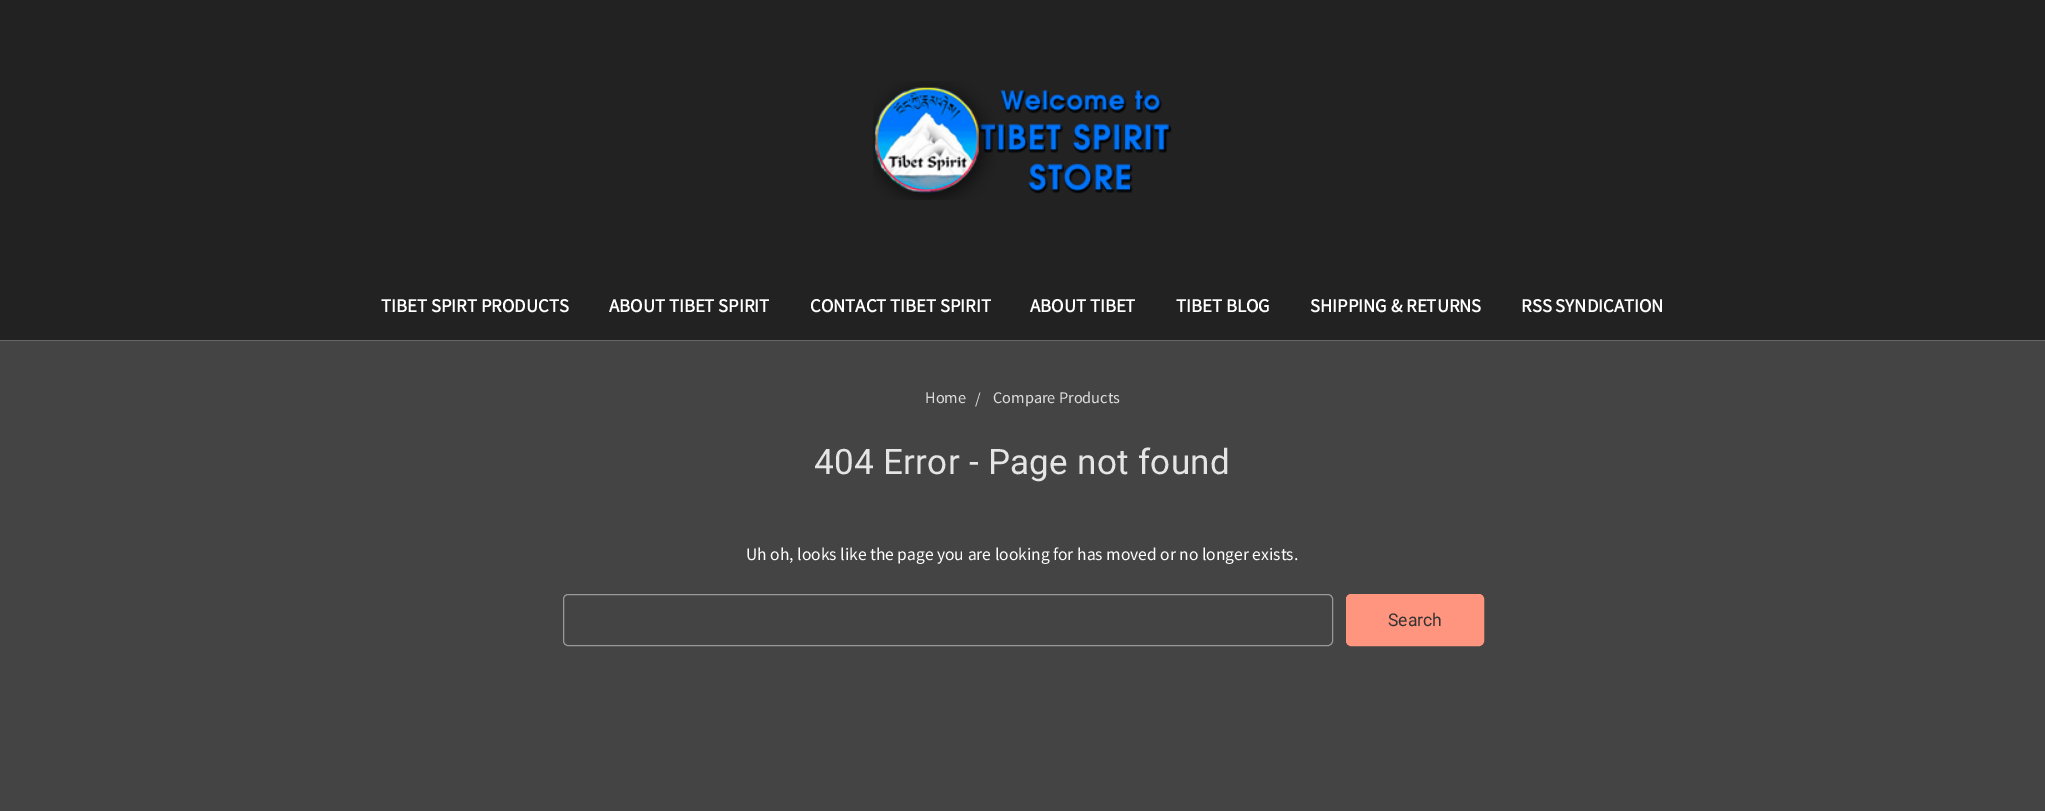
%!PS
<< /PageSize [2045 811] >> setpagedevice
/mt/moveto load def
/fl/fill load def
/st/stroke load def
/gs/gsave load def
/gr/grestore load def
/co { dup -16 bitshift 255 div exch dup -8 bitshift 255 and 255 div exch 255 and 255 div setrgbcolor } def
/fn { [ exch dup neg 0 0 3 -1 roll 0 0 ] selectfont } def
/tx { co fn moveto show } def
/bx { co rectfill } def
/rr { 5 dict begin { /r /h /w /y /x } { exch def } forall
  x r add y moveto x w add y 2 copy h add r arct x w add y h add x 1 index r arct
  x y h add x y r arct x y 2 copy exch w add exch r arct closepath end } def
/im { 5 dict begin { /h /w /y /x /name } { exch def } forall
  gsave x y translate w h scale
  w h 8 [w 0 0 h 0 0] name (r) file false 3 colorimage grestore end } def
0 811 translate 1 -1 scale
4 setmiterlimit
0 0 2045 811 16#444444 bx
0 0 2045 340 16#222222 bx
0 340 2045 1 16#666666 bx
(media/1.raw) 873 81 299 119 im
16#999999 co
563.5 594.5 769 51 4.5 rr st
16#FF957F co
1346.5 594.5 137 51 4.5 rr gs fl gr
st
(TIBET SPIRT PRODUCTS) 381 312 /SourceSansPro-Bold 18.75 16#FFFFFF tx
(ABOUT TIBET SPIRIT) 609 312 /SourceSansPro-Bold 18.75 16#FFFFFF tx
(CONTACT TIBET SPIRIT) 810 312 /SourceSansPro-Bold 18.75 16#FFFFFF tx
(ABOUT TIBET) 1030 312 /SourceSansPro-Bold 18.75 16#FFFFFF tx
(TIBET BLOG) 1176 312 /SourceSansPro-Bold 18.75 16#FFFFFF tx
(SHIPPING & RETURNS) 1310 312 /SourceSansPro-Bold 18.75 16#FFFFFF tx
(RSS SYNDICATION) 1521 312 /SourceSansPro-Bold 18.75 16#FFFFFF tx
(Home) 925 403 /SourceSansPro-Regular 16.25 16#DDDDDD tx
(/) 975 404 /SourceSansPro-Regular 16.25 16#DDDDDD tx
(Compare Products) 993 403 /SourceSansPro-Regular 16.25 16#DDDDDD tx
/Roboto-Regular 35 fn
16#E5E5E5 co
814 474 mt .3 0 (404 Error - Page not found) ashow
(Uh oh, looks like the page you are looking for has moved or no longer exists.) 746 560 /SourceSansPro-Regular 17.5 16#FFFFFF tx
(Search) 1388 626 /Roboto-Regular 17.5 16#333333 tx
showpage
